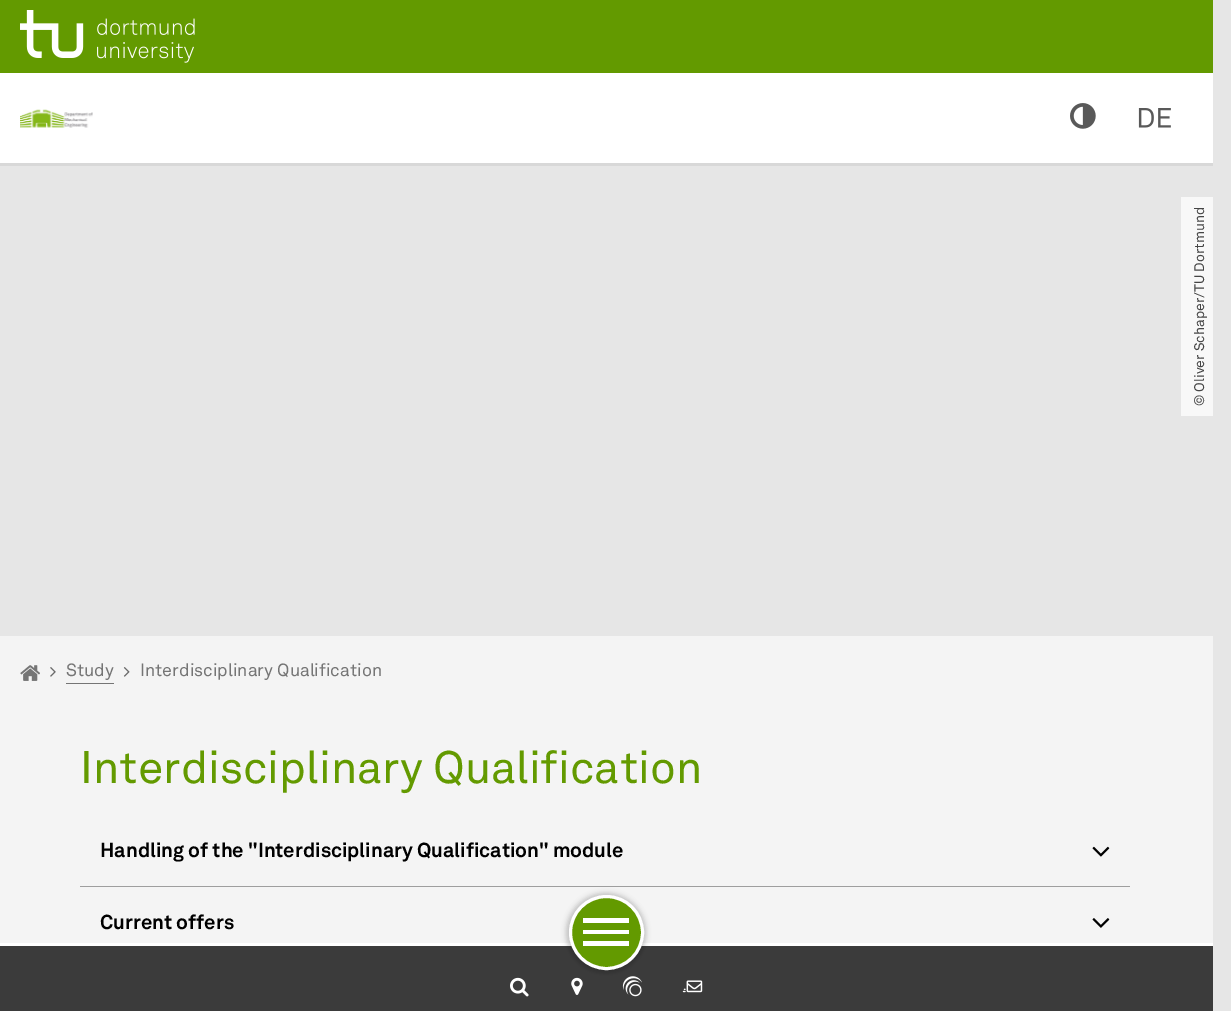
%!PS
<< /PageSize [1231 1011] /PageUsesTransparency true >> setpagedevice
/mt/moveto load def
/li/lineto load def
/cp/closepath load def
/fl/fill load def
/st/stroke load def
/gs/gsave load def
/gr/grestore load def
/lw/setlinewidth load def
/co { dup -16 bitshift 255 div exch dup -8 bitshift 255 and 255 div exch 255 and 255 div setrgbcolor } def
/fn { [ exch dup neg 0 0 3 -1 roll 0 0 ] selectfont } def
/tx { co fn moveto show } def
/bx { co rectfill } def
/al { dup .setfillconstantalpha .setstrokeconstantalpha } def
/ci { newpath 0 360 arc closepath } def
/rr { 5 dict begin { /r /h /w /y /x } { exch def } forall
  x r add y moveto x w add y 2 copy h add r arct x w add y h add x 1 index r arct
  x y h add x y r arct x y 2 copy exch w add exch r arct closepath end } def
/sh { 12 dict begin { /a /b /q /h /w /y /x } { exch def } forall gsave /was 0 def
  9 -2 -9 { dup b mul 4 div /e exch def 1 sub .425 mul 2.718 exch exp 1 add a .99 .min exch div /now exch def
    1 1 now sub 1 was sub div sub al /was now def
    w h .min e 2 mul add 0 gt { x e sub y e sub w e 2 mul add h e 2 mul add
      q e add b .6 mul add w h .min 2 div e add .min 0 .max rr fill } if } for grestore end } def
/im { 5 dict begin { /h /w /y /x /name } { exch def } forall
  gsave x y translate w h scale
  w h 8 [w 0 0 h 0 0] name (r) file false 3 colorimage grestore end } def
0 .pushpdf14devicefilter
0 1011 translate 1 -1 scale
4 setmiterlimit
0 0 1231 1011 16#E6E6E6 bx
0 0 1213 73 16#639A00 bx
(media/1.raw) 20 10 175 53 im
0 73 1213 90 16#FFFFFF bx
0 163 1213 3 16#D8D8D8 bx
(media/2.raw) 20 109 73 19 im
(media/3.raw) 1070 103 26 26 im
(media/4.raw) 1138 108 33 20 im
1181 197 32 219 16#F8F8F8 bx
0 636 1213 307 16#F4F4F4 bx
(media/5.raw) 20 665 20 16 im
(media/6.raw) 50 667 6 10 im
66 683 48 1 16#757575 bx
(media/7.raw) 123 667 7 10 im
80 886 1050 1 16#9E9E9E bx
(media/8.raw) 1092 846 18 11 im
(media/9.raw) 1092 918 18 10 im
0 946 1213 65 16#3B3B3B bx
0 943 1213 3 16#FFFFFF bx
(media/11.raw) 571 977 12 18 im
(media/12.raw) 622 976 20 21 im
16#000000 co
566 893 80 80 40 2.5 .2 sh
16#639A00 co
606.5 932.5 36 ci gs fl gr
16#FFFFFF co
3 lw
st
583 918 mt 629 918 li 629 923 li 583 923 li cp 583 930 mt 629 930 li 629 934 li 583 934 li cp 583 941 mt 629 941 li 629 946 li 583 946 li cp fl
(media/10.raw) 510 977 19 20 im
(media/13.raw) 682 980 21 13 im
/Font-Regular 13.75 fn
16#454545 co
gs 1204 406 translate -90 rotate 0 0 mt (© Oliver Schaper/TU Dortmund) show gr
(Study) 66 676 /Font-Regular 17.5 16#757575 tx
(Interdisciplinary Qualification) 140 676 /Font-Regular 17.5 16#757575 tx
(Interdisciplinary Qualification) 80 783 /Font-Regular 45 16#639A00 tx
(Handling of the "Interdisciplinary Qualification" module) 100 857 /Font-Bold 20 16#000000 tx
(Current offers) 100 929 /Font-Bold 20 16#000000 tx
.poppdf14devicefilter showpage
